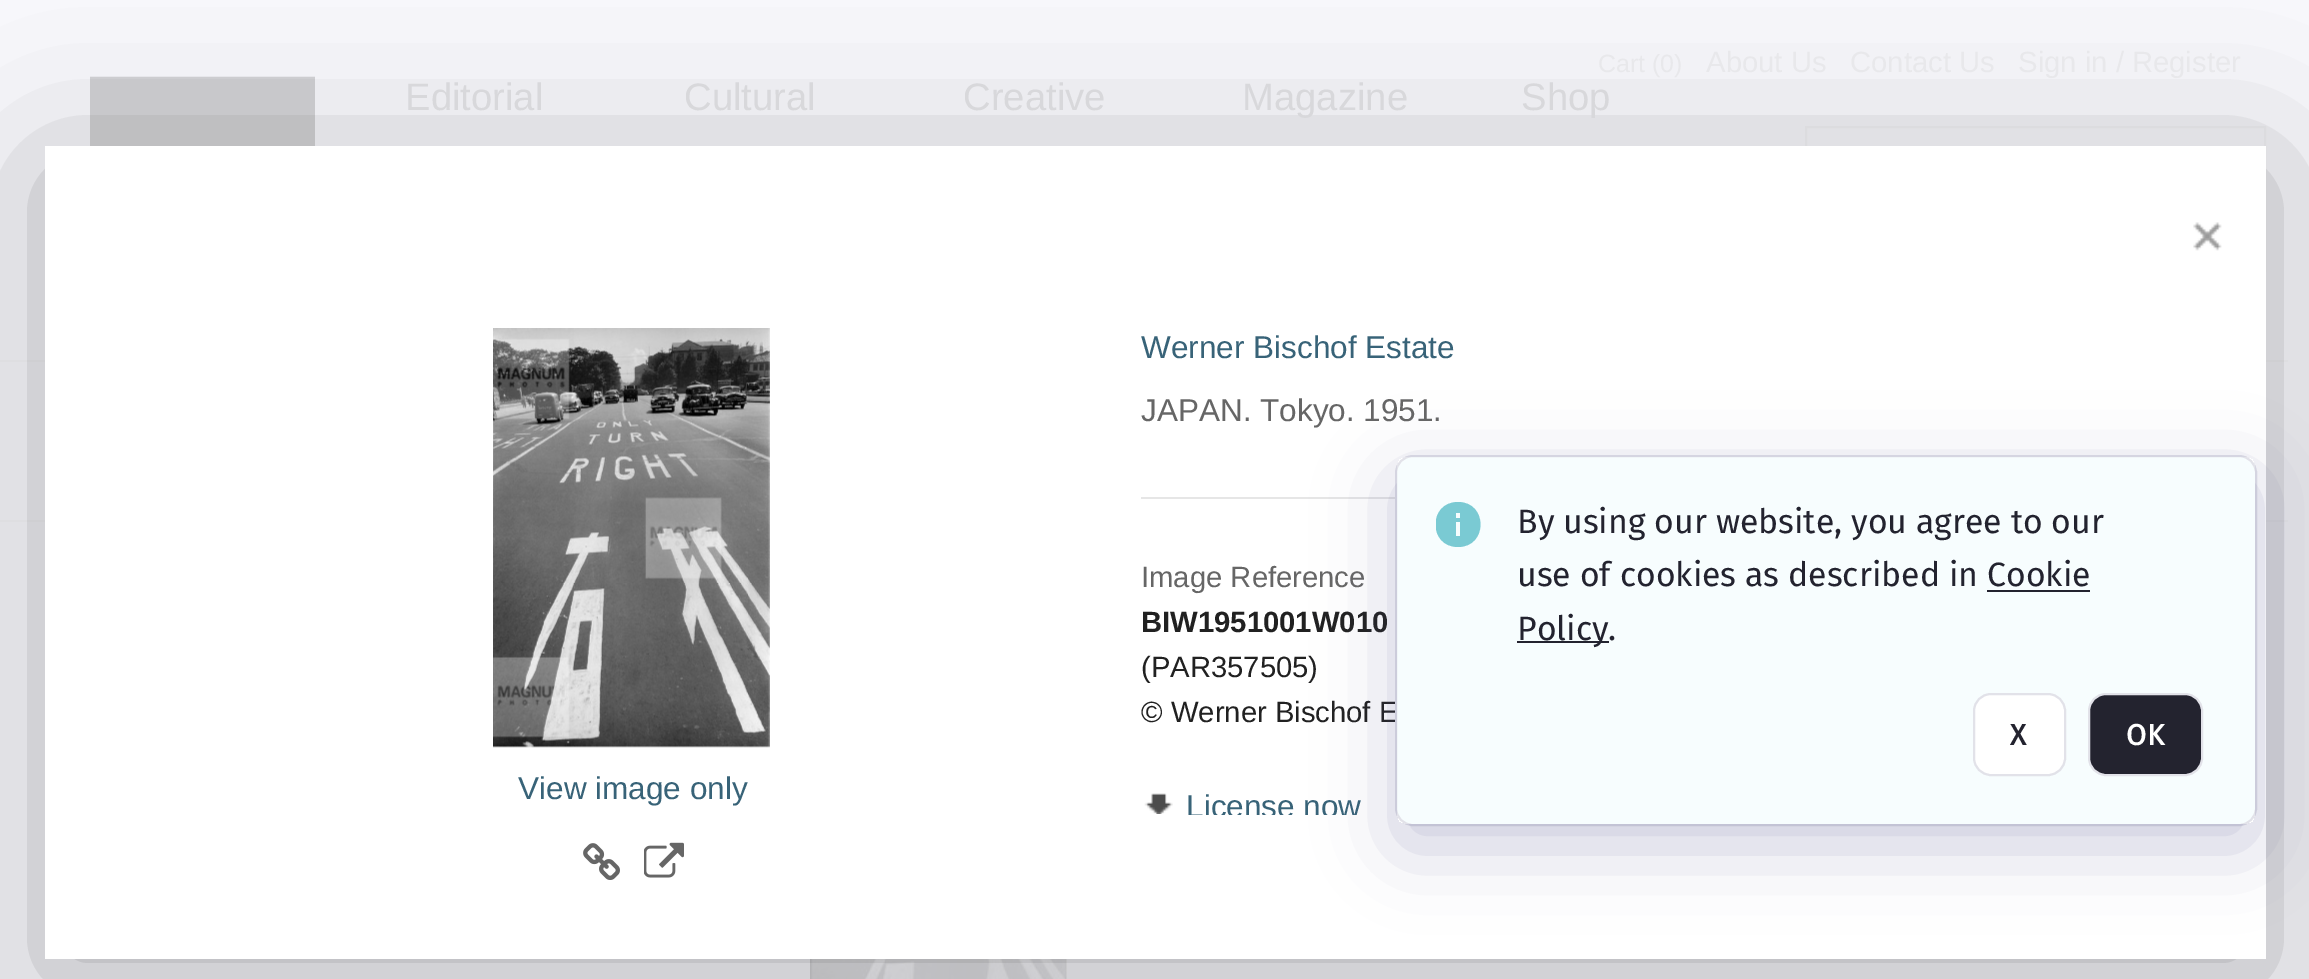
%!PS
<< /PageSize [2309 979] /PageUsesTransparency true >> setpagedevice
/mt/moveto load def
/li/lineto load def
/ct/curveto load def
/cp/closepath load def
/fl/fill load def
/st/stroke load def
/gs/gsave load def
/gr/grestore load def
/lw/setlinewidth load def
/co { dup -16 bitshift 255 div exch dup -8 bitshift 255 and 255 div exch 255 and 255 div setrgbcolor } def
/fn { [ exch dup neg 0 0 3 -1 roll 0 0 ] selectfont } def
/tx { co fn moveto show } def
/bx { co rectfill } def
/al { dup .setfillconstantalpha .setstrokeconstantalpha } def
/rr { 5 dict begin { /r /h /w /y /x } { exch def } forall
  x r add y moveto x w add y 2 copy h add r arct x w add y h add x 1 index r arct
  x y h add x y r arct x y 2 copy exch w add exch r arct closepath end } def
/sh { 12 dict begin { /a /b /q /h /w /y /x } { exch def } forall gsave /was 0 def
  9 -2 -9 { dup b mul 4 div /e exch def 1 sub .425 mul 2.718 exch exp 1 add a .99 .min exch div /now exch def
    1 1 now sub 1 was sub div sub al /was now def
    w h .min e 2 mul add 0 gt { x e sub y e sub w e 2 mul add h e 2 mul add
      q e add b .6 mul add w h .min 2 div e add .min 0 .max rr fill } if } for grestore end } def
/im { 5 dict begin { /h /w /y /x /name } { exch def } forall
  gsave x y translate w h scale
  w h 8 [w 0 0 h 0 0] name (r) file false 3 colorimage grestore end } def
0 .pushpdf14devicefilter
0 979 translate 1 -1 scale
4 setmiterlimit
0 0 2309 979 16#F7F7FB bx
(media/1.raw) 90 76 225 70 im
16#F2F2F5 co
2 lw
1806 127 459 144 rectstroke
0 360 2288 2 16#F4F4F7 bx
0 520 2288 2 16#F4F4F7 bx
(media/2.raw) 810 959 257 20 im
16#000000 co
45 169 2221 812 0 72 .3 sh
45 146 2221 813 16#FFFFFF bx
(media/3.raw) 2193 222 29 29 im
(media/4.raw) 493 328 277 420 im
(media/5.raw) 583 843 37 37 im
(media/6.raw) 644 842 40 36 im
1141 497 254 2 16#E6E6E6 bx
(media/7.raw) 1144 793 29 21 im
(Cart \(0\)) 1598 72 /LiberationSans-Regular 25 16#E8E8EB tx
(About Us) 1706 72 /LiberationSans-Regular 29.25 16#E8E8EB tx
(Contact Us) 1850 72 /LiberationSans-Regular 29.25 16#E8E8EB tx
(Sign in / Register) 2018 72 /LiberationSans-Regular 29.25 16#E8E8EB tx
(Editorial) 405 110 /LiberationSans-Regular 38.25 16#D8D8DB tx
(Cultural) 684 110 /LiberationSans-Regular 38.25 16#D8D8DB tx
(Creative) 963 110 /LiberationSans-Regular 38.25 16#D8D8DB tx
(Magazine) 1242 110 /LiberationSans-Regular 38.25 16#D8D8DB tx
(Shop) 1521 110 /LiberationSans-Regular 38.25 16#D8D8DB tx
(View image only) 518 799 /LiberationSans-Regular 31.5 16#386378 tx
(Werner Bischof Estate) 1141 358 /LiberationSans-Regular 31.5 16#386378 tx
(JAPAN. Tokyo. 1951.) 1141 421 /LiberationSans-Regular 31.5 16#666666 tx
(Image Reference) 1141 587 /LiberationSans-Regular 29.25 16#666666 tx
(BIW1951001W010) 1141 632 /LiberationSans-Bold 29.25 16#212121 tx
(\(PAR357505\)) 1141 677 /LiberationSans-Regular 29.25 16#212121 tx
(© Werner Bischof E) 1141 722 /LiberationSans-Regular 29.25 16#212121 tx
gs
1141 788 223 27 rectclip
(License now) 1186 817 /LiberationSans-Regular 31.5 16#386378 tx
gr
16#F7FDFE co
1396 456 860 369 17 rr gs fl gr
16#E2E2E9 co
st
gs
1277 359 mt 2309 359 li 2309 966 li 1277 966 li cp 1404 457 mt 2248 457 li 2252 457 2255 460 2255 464 ct 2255 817 li 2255 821 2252 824 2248 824 ct 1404 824 li 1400 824 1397 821 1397 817 ct 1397 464 li 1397 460 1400 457 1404 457 ct cp eoclip newpath
16#4D4D87 co
1397 479 858 367 7 39.5 .3 sh
gr
gs
1436 502 45 45 rectclip
16#7ACAD3 co
1458 502 mt 1428 502 1428 547 1458 547 ct 1488 547 1488 502 1458 502 ct cp 1460 536 mt 1456 536 li 1456 522 li 1460 522 li cp 1460 518 mt 1456 518 li 1456 513 li 1460 513 li cp fl
gr
(By using our website, you agree to our) 1517 533 /FiraSans-Regular 33.75 16#23232F tx
(use of cookies as described in Cookie) 1517 586 /FiraSans-Regular 33.75 16#23232F tx
1987 590 103 2 16#23232F bx
1517 641 92 2 16#23232F bx
(Policy) 1517 640 /FiraSans-Regular 33.75 16#23232F tx
(.) 1608 640 /FiraSans-Regular 33.75 16#23232F tx
16#FFFFFF co
1974 694 91 81 17 rr gs fl gr
16#E2E2E9 co
st
/FiraSans-Bold 29.25 fn
16#23232F co
2010 745 mt 1 0 (X) ashow
2089 694 113 81 17 rr gs fl gr
16#E2E2E9 co
st
16#FFFFFF co
2126 745 mt 1 0 (OK) ashow
.poppdf14devicefilter showpage
